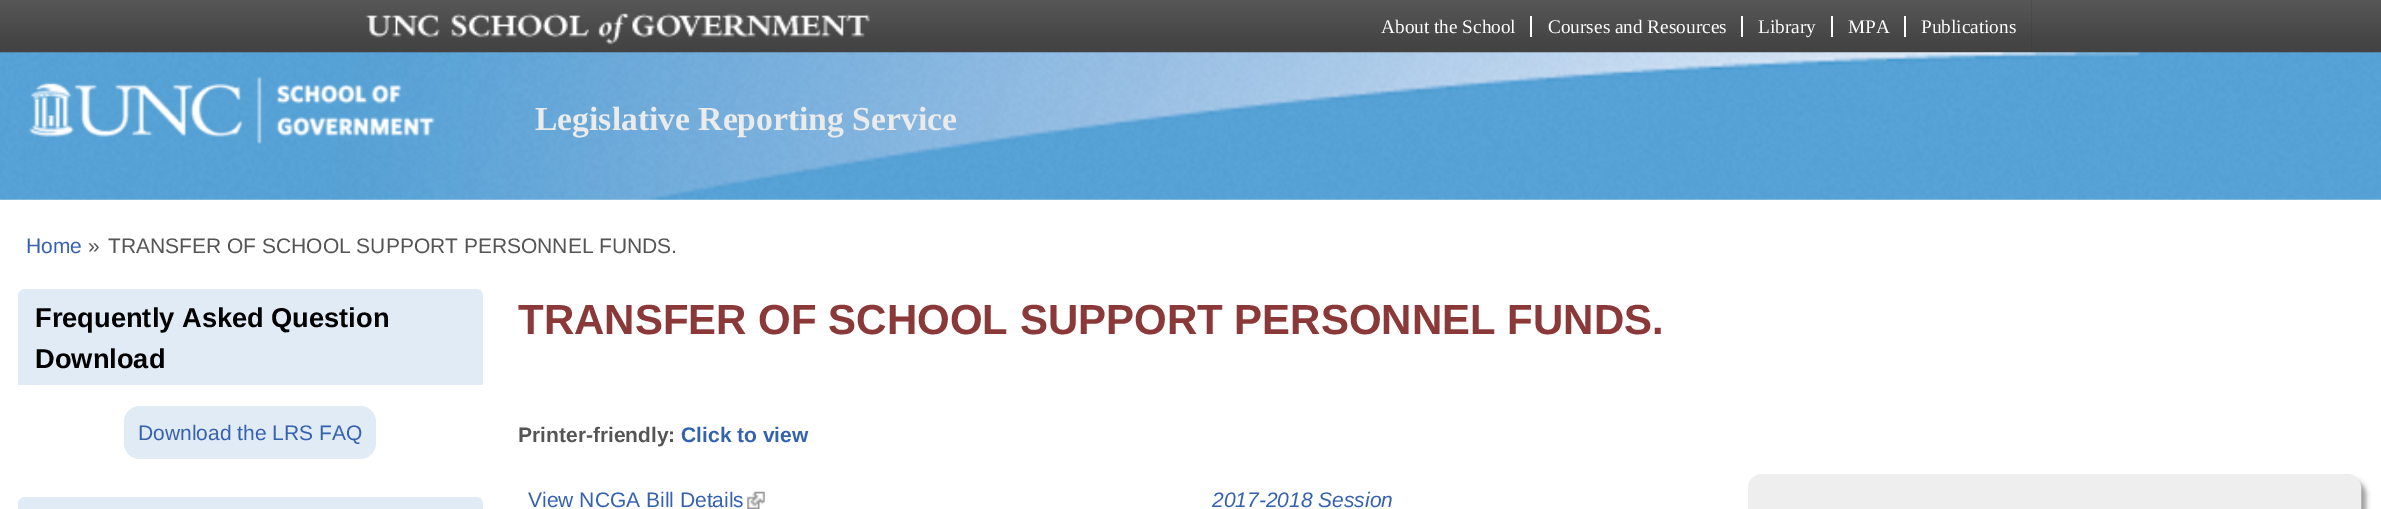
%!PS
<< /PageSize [2381 509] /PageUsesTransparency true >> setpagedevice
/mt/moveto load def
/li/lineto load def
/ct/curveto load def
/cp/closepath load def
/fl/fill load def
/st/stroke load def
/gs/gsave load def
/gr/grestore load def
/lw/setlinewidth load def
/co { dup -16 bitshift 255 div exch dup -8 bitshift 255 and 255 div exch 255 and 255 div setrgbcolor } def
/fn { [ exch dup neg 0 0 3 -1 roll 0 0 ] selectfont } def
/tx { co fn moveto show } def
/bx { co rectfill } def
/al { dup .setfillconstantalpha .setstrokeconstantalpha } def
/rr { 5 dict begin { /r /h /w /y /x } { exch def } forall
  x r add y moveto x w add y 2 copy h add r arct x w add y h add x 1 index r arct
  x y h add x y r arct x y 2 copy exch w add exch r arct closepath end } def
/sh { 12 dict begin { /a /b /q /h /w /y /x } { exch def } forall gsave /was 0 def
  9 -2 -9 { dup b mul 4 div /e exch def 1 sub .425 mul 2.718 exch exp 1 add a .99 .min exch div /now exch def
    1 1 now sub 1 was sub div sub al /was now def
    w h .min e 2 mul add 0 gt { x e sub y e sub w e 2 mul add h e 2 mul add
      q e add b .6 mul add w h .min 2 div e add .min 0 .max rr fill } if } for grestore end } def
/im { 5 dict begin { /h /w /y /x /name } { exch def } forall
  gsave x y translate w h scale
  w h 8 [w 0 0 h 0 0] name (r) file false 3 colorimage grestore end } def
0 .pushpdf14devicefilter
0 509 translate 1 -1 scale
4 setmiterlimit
0 0 2381 509 16#FFFFFF bx
(media/1.raw) 0 52 2381 1 im
(media/2.raw) 0 0 2381 53 im
(media/3.raw) 352 0 1680 53 im
16#4C4C4C co
0 53 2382 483 0 9 .7 sh
(media/4.raw) 365 13 505 32 im
1530 16 2 21 16#FFFFFF bx
1741 16 2 21 16#FFFFFF bx
1831 16 2 21 16#FFFFFF bx
1904 16 2 21 16#FFFFFF bx
0 199 2381 310 16#FFFFFF bx
(media/5.raw) 0 52 2381 148 im
(media/6.raw) 0 52 2381 148 im
(media/7.raw) 29 76 406 68 im
16#E1EBF5 co
25 289 mt 476 289 li 480 289 483 292 483 296 ct 483 385 li 18 385 li 18 296 li 18 292 21 289 25 289 ct cp fl
124 406 252 53 16 rr fl
25 497 mt 476 497 li 480 497 483 500 483 504 ct 483 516 li 18 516 li 18 504 li 18 500 21 497 25 497 ct cp fl
(media/8.raw) 747 491 18 18 im
16#9C9C9C co
1754 480 612 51 14 2.5 1 sh
16#EEEEEE co
1756 482 597 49 6 rr gs fl gr
16 lw
st
(About the School) 1381 33 /LiberationSerif-Regular 19.25 16#FFFFFF tx
(Courses and Resources) 1548 33 /LiberationSerif-Regular 19.25 16#FFFFFF tx
(Library) 1758 33 /LiberationSerif-Regular 19.25 16#FFFFFF tx
(MPA) 1848 33 /LiberationSerif-Regular 19.25 16#FFFFFF tx
(Publications) 1921 33 /LiberationSerif-Regular 19.25 16#FFFFFF tx
(Legislative Reporting Service) 535 130 /LiberationSerif-Bold 33.6 16#EBEBEB tx
(Home) 26 253 /LiberationSans-Regular 21 16#3561B1 tx
(») 88 253 /LiberationSans-Regular 21 16#555555 tx
(TRANSFER OF SCHOOL SUPPORT PERSONNEL FUNDS.) 108 253 /LiberationSans-Regular 21 16#555555 tx
(Frequently Asked Question) 35 327 /LiberationSans-Bold 27.25 16#000000 tx
(Download) 35 368 /LiberationSans-Bold 27.25 16#000000 tx
(Download the LRS FAQ) 138 440 /LiberationSans-Regular 21 16#3561B1 tx
(TRANSFER OF SCHOOL SUPPORT PERSONNEL FUNDS.) 518 334 /LiberationSans-Bold 42 16#8A3838 tx
(Printer-friendly:) 518 442 /LiberationSans-Bold 21 16#555555 tx
(Click to view) 681 442 /LiberationSans-Bold 21 16#3561B1 tx
(View NCGA Bill Details) 528 507 /LiberationSans-Regular 21 16#3561B1 tx
(2017-2018 Session) 1212 507 /LiberationSans-Italic 21 16#3561B1 tx
.poppdf14devicefilter showpage
